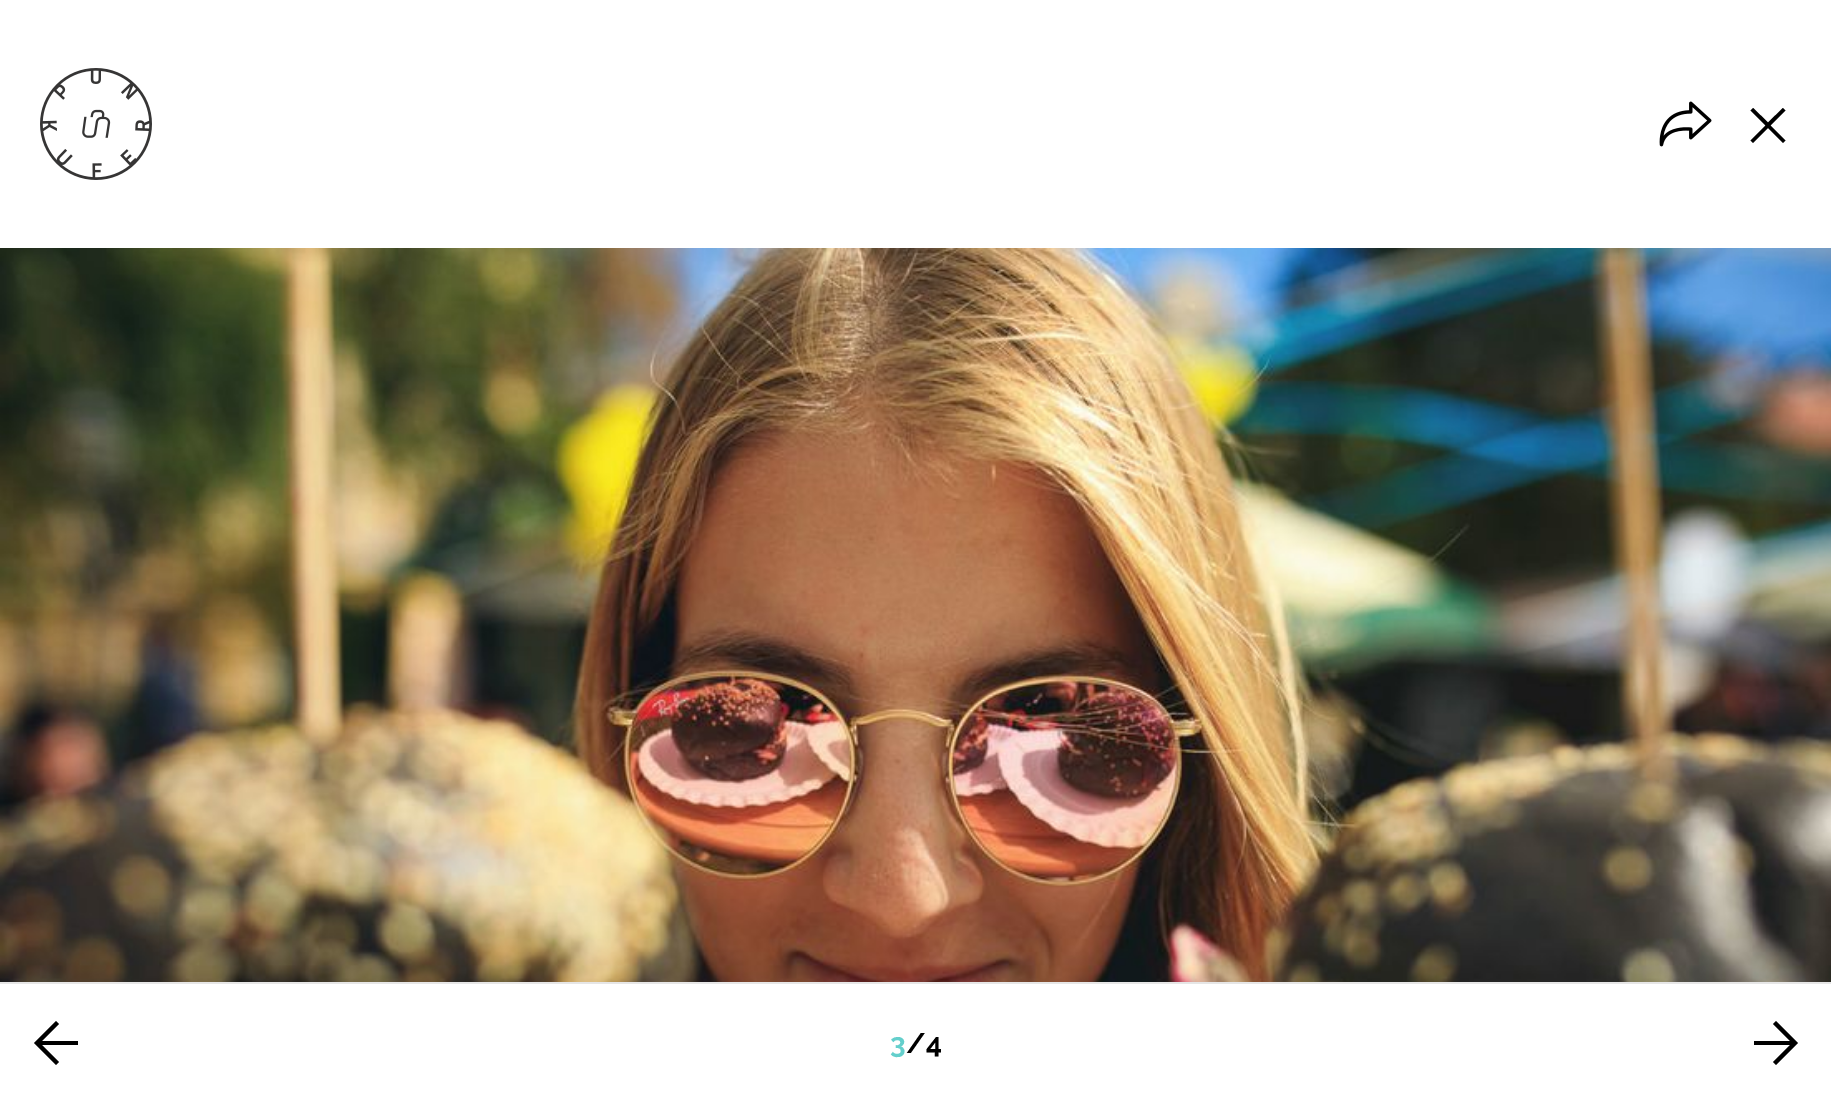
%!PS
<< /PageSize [1831 1102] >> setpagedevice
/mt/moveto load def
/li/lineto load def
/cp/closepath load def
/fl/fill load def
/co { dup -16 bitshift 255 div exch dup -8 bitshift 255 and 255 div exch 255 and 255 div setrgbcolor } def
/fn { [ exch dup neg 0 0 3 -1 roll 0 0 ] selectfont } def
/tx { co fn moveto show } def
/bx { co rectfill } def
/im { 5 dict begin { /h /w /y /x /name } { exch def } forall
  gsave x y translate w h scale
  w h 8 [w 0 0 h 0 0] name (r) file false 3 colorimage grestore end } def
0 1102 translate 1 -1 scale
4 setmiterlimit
0 0 1831 1102 16#FFFFFF bx
(media/1.raw) 40 68 112 112 im
(media/2.raw) 1659 101 53 46 im
16#000000 co
1753 143 mt 1750.5 140.5 li 1765.5 125.5 li 1750.5 110.5 li 1753 108 li 1768 122.5 li 1783 108 li 1785.5 110.5 li 1770.5 125.5 li 1785.5 140.5 li 1783 143 li 1768 128 li cp fl
(media/3.raw) 0 248 1831 734 im
0 982 1831 2 16#E6E6E6 bx
16#000000 co
56 1065 mt 59 1062 li 42 1045 li 78 1045 li 78 1041 li 42 1041 li 59 1024 li 56 1021 li 34 1043 li cp fl
1776 1065 mt 1773 1062 li 1790 1045 li 1754 1045 li 1754 1041 li 1790 1041 li 1773 1024 li 1776 1021 li 1798 1043 li cp fl
(3) 890 1053 /Raleway-Bold 28 16#64CFCC tx
(/4) 906 1053 /Raleway-Bold 28 16#000000 tx
showpage
